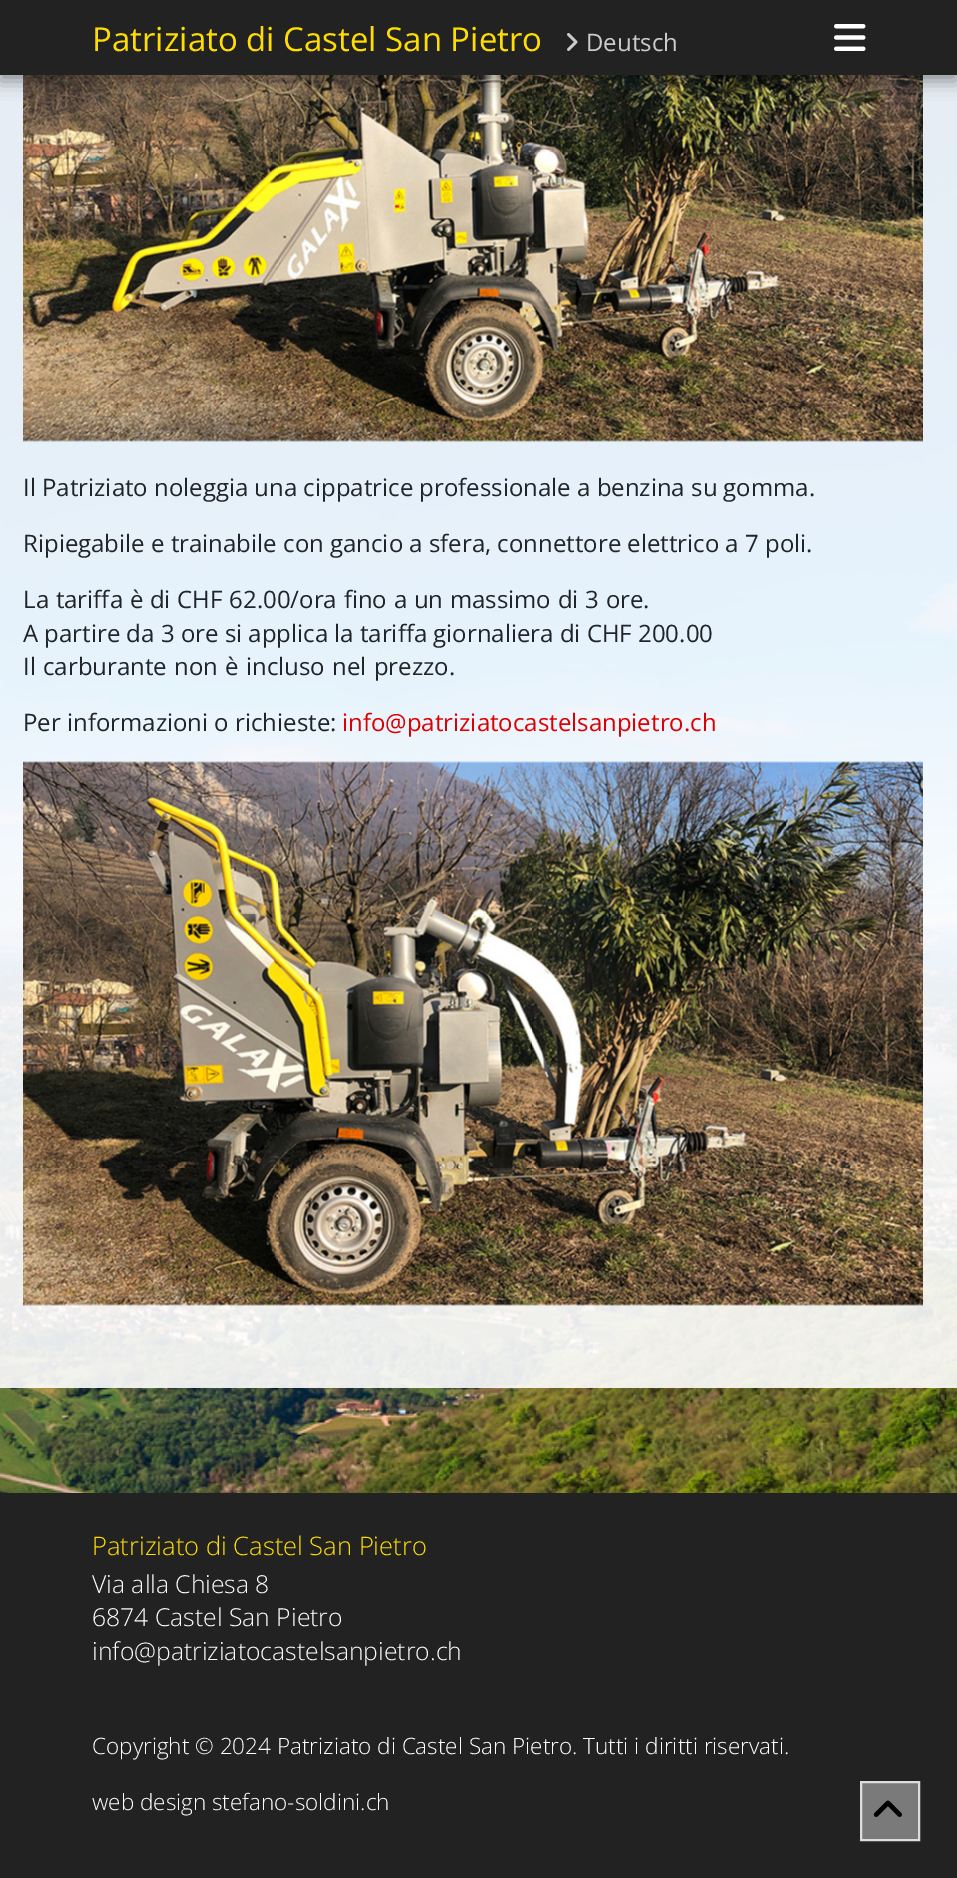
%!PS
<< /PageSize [957 1878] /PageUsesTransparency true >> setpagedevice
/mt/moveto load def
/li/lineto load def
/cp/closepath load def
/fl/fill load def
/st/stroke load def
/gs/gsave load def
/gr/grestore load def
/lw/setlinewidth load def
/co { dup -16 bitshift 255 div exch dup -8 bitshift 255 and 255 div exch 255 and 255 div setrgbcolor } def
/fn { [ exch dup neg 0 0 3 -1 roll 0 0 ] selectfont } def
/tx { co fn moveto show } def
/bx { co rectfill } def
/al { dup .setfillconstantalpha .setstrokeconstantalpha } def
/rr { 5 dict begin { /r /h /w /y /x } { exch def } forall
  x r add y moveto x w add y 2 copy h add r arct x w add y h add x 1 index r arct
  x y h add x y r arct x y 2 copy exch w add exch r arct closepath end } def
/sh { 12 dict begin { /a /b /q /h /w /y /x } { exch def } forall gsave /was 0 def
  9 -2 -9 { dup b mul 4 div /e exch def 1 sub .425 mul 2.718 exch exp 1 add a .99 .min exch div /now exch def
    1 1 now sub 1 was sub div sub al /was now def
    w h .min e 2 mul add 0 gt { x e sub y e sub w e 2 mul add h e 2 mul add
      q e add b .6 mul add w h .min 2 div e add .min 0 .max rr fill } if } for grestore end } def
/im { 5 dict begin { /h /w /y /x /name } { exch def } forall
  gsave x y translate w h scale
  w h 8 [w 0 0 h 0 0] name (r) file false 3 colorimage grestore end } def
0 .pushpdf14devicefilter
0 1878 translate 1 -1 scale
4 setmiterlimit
0 0 957 1878 16#FFFFFF bx
(media/3.raw) 0 75 957 1418 im
(media/4.raw) 23 75 900 367 im
16#000000 co
0 6 957 75 0 9 .4 sh
0 0 957 75 16#222222 bx
(media/1.raw) 567 33 11 18 im
(media/2.raw) 834 24 32 27 im
(media/5.raw) 23 761 900 545 im
0 1493 957 385 16#222222 bx
16#7A7A7A co
861 1782 mt 919 1782 li 919 1840 li 861 1840 li cp gs fl gr
16#DDDDDD co
2 lw
st
(media/6.raw) 873 1800 29 17 im
(Patriziato di Castel San Pietro) 92 51 /OpenSans-Regular 33 16#FFDD00 tx
(Deutsch) 586 51 /OpenSans-Regular 24 16#CCCCCC tx
(Il Patriziato noleggia una cippatrice professionale a benzina su gomma.) 23 496 /OpenSans-Regular 24 16#212529 tx
(Ripiegabile e trainabile con gancio a sfera, connettore elettrico a 7 poli.) 23 552 /OpenSans-Regular 24 16#212529 tx
23 608 mt .5 0 32 (La tariffa è di CHF 62.00/ora fino a un massimo di 3 ore.) widthshow
(A partire da 3 ore si applica la tariffa giornaliera di CHF 200.00) 23 642 /OpenSans-Regular 24 16#212529 tx
23 675 mt 1 0 32 (Il carburante non è incluso nel prezzo.) widthshow
(Per informazioni o richieste:) 23 731 /OpenSans-Regular 24 16#212529 tx
(info@patriziatocastelsanpietro.ch) 342 731 /OpenSans-Regular 24 16#DD0000 tx
(Patriziato di Castel San Pietro) 92 1555 /OpenSans-Light 25.5 16#FFDD00 tx
(Via alla Chiesa 8) 92 1593 /OpenSans-Light 24.75 16#FFFFFF tx
(6874 Castel San Pietro) 92 1626 /OpenSans-Light 24.75 16#FFFFFF tx
(info@patriziatocastelsanpietro.ch) 92 1660 /OpenSans-Light 24.75 16#FFFFFF tx
(Copyright © 2024 Patriziato di Castel San Pietro. Tutti i diritti riservati.) 92 1754 /OpenSans-Light 22.5 16#FFFFFF tx
(web design stefano-soldini.ch) 92 1810 /OpenSans-Light 22.5 16#FFFFFF tx
.poppdf14devicefilter showpage
